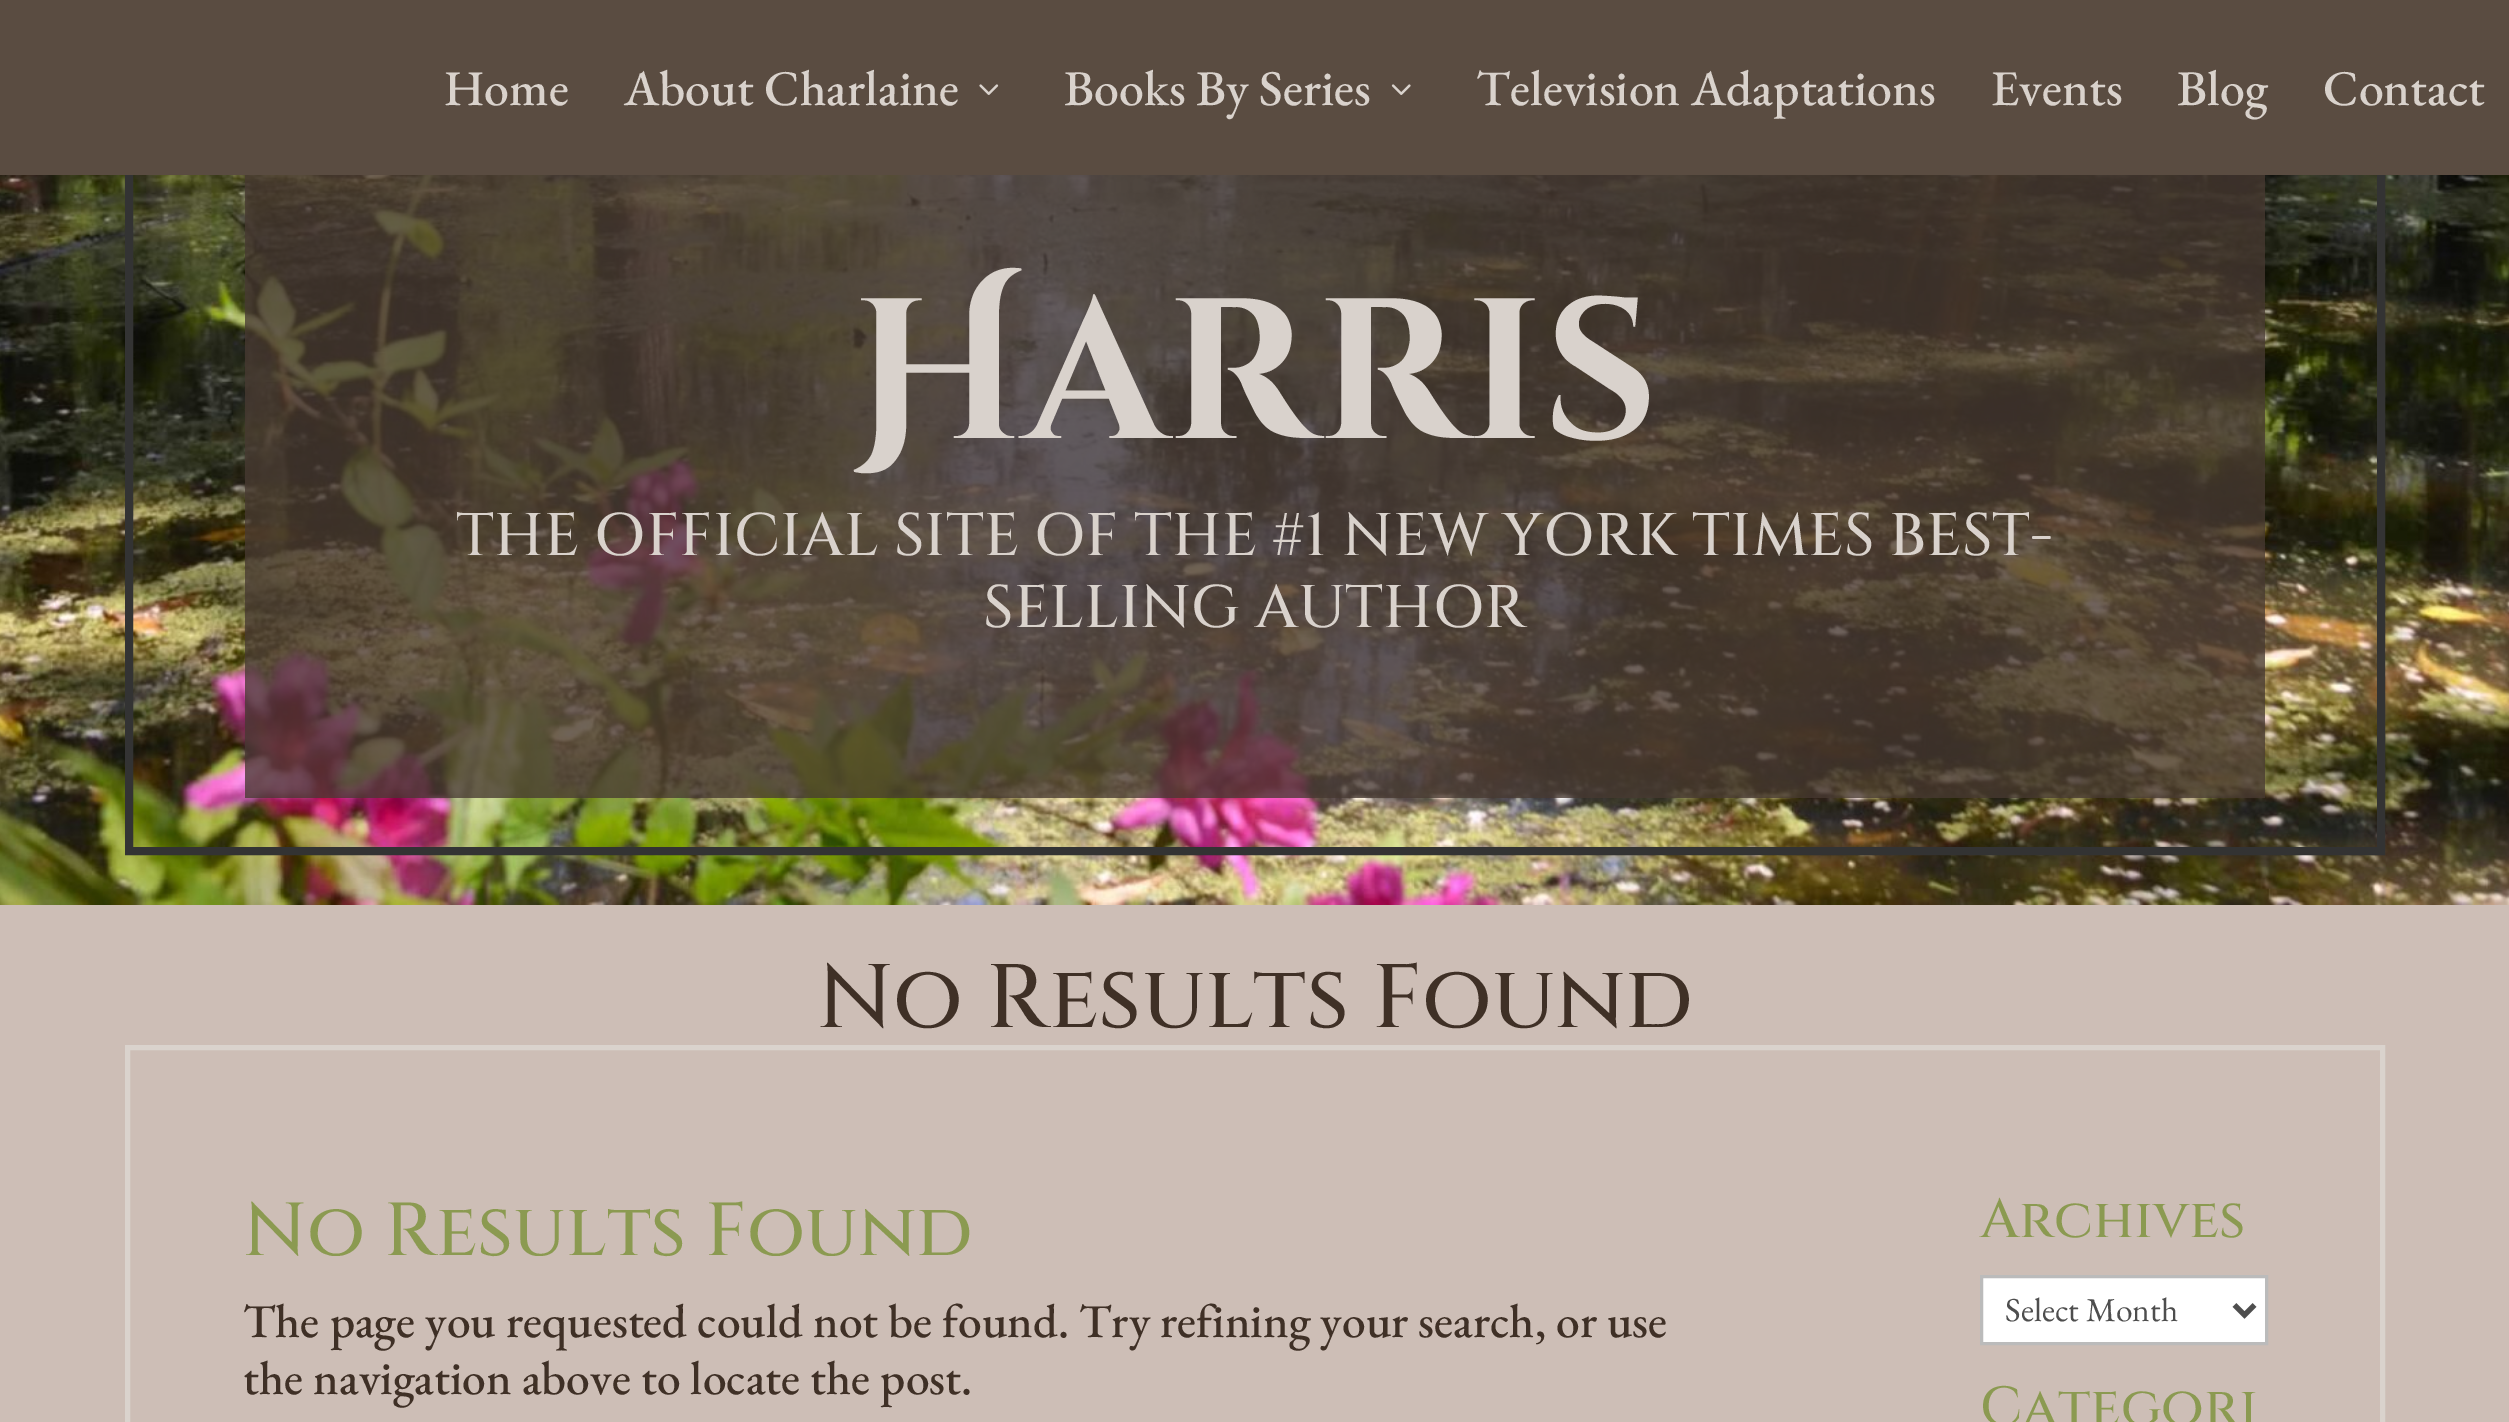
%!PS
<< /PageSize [2509 1422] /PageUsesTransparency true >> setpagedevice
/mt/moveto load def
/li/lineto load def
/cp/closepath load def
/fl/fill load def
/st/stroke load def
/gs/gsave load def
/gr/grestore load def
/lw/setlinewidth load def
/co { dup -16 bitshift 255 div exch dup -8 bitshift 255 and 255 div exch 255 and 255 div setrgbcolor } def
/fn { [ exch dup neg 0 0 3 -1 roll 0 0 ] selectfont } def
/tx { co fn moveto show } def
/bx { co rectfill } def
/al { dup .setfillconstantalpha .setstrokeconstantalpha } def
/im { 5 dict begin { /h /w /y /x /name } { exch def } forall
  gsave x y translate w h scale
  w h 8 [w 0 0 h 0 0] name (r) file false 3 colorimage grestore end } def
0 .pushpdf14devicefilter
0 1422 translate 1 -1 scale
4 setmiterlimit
0 0 2509 1422 16#CDBEB6 bx
(media/3.raw) 0 175 2509 730 im
16#333333 co
8 lw
129 -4 2252 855 rectstroke
0 0 2509 175 16#5A4C41 bx
(media/1.raw) 979 84 20 11 im
(media/2.raw) 1391 84 20 11 im
0.78 al
245 175 2020 623 16#473931 bx
1 al
16#DAD3CD co
5 lw
127.5 1047.5 2255 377 rectstroke
16#FFFFFF co
1981.5 1276.5 mt 2266.5 1276.5 li 2266.5 1343.5 li 1981.5 1343.5 li cp gs fl gr
16#BBBBBB co
3 lw
st
16#4E4E4E co
5 lw
2234.5 1305 mt 2244.5 1315 li 2254.5 1305 li st
(Home) 444 105 /EBGaramond-Medium 50 16#D9D2CC tx
(About Charlaine) 624 105 /EBGaramond-Medium 50 16#D9D2CC tx
(Books By Series) 1064 105 /EBGaramond-Medium 50 16#D9D2CC tx
(Television Adaptations) 1476 105 /EBGaramond-Medium 50 16#D9D2CC tx
(Events) 1991 105 /EBGaramond-Medium 50 16#D9D2CC tx
(Blog) 2177 105 /EBGaramond-Medium 50 16#D9D2CC tx
(Contact) 2323 105 /EBGaramond-Medium 50 16#D9D2CC tx
(Harris) 852 438 /CinzelDecorative-Bold 200 16#D9D2CC tx
(THE OFFICIAL SITE OF THE #1 NEW YORK TIMES BEST-) 456 555 /Cinzel-Medium 60 16#D9D2CC tx
(SELLING AUTHOR) 983 627 /Cinzel-Medium 60 16#D9D2CC tx
(No Results Found) 817 1027 /Cinzel-Medium 90 16#3F3026 tx
(No Results Found) 243 1255 /Cinzel-Medium 75 16#8B9A51 tx
(The page you requested could not be found. Try refining your search, or use) 243 1337 /EBGaramond-Medium 47.5 16#3F3026 tx
(the navigation above to locate the post.) 243 1394 /EBGaramond-Medium 47.5 16#3F3026 tx
(Archives) 1980 1237 /Cinzel-Medium 55 16#8B9A51 tx
(Select Month) 2005 1321 /EBGaramond-Regular 33.5 16#4E4E4E tx
(Categori) 1980 1425 /Cinzel-Medium 55 16#8B9A51 tx
.poppdf14devicefilter showpage
